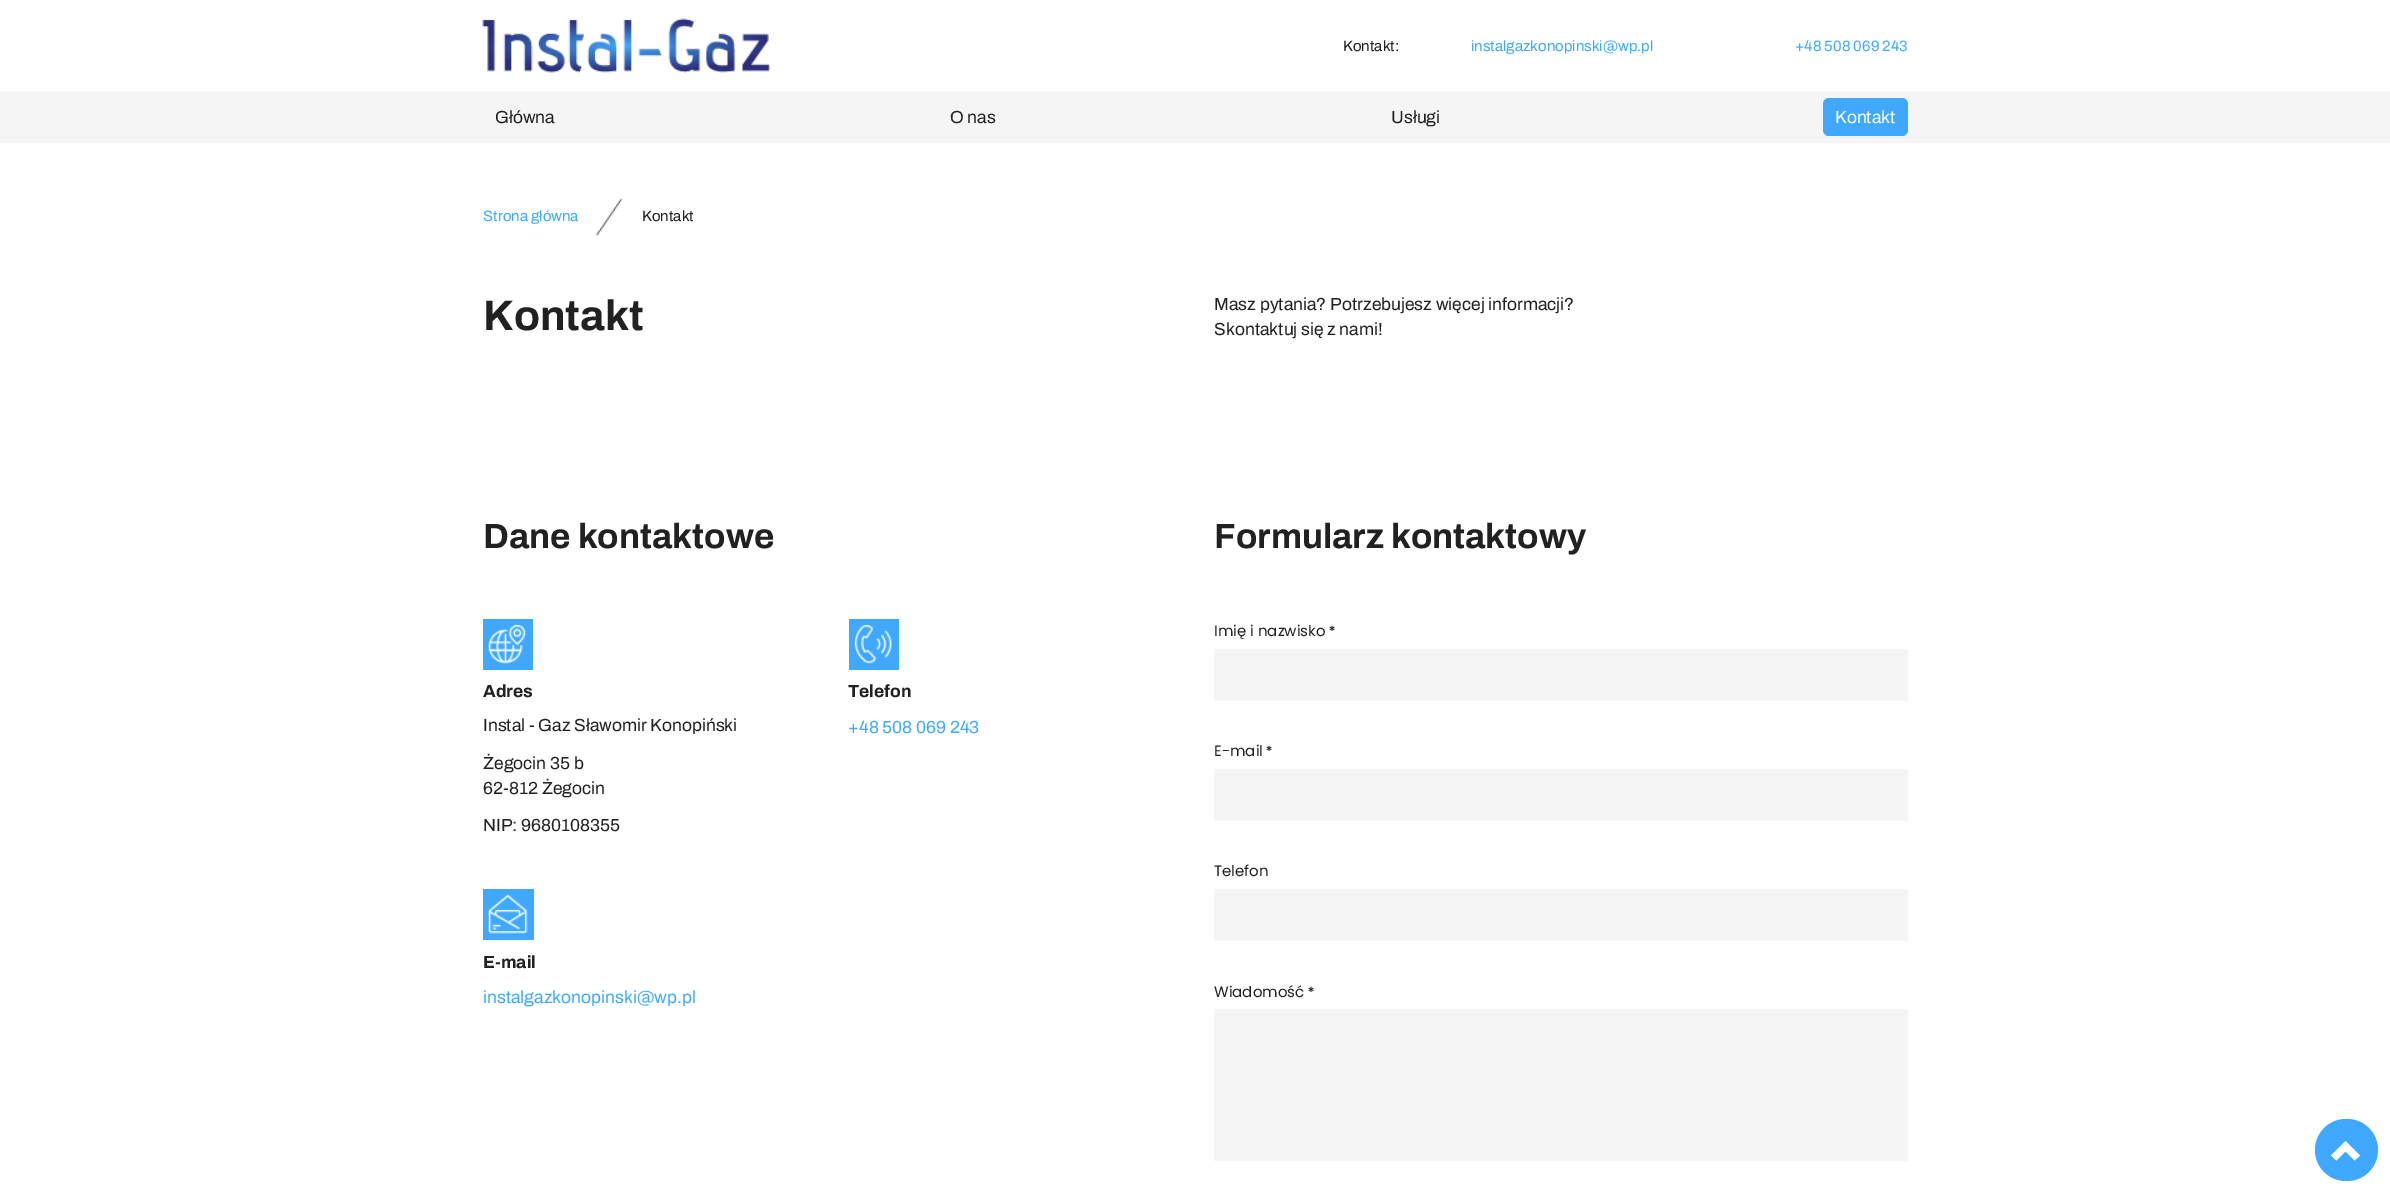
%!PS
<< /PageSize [2390 1199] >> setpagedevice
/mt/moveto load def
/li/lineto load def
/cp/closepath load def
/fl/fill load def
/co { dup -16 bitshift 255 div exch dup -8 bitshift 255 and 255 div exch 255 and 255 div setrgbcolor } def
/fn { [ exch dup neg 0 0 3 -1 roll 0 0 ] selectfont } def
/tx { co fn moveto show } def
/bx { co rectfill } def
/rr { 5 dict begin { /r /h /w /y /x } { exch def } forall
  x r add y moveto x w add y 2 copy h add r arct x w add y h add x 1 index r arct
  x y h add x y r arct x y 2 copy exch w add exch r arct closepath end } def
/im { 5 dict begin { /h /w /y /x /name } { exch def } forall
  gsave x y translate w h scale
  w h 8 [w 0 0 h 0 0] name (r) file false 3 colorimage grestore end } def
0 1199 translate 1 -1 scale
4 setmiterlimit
0 0 2390 1199 16#FFFFFF bx
(media/1.raw) 482 18 288 55 im
0 91 2390 52 16#F5F5F5 bx
16#40A9FF co
1823 98 85 38 6 rr fl
(media/2.raw) 596 198 27 38 im
483 619 50 51 16#40A9FF bx
(media/3.raw) 488 625 38 39 im
849 619 50 51 16#40A9FF bx
(media/4.raw) 855 625 38 39 im
483 889 51 51 16#40A9FF bx
(media/5.raw) 488 895 40 39 im
16#F5F5F5 co
1214 649 694 52 1 rr fl
1214 769 694 52 1 rr fl
1214 889 694 52 1 rr fl
1214 1009 694 152 1 rr fl
16#40A9FF co
2315 1119 63 62 31 rr fl
16#FFFFFF co
2360 1155.5 mt 2354.5 1160.5 li 2345.5 1151.5 li 2336.5 1160.5 li 2331 1155.5 li 2345.5 1141 li cp fl
(Kontakt:) 1343 51 /Archivo-Regular 15 16#212121 tx
(instalgazkonopinski@wp.pl) 1471 51 /Archivo-Regular 15 16#40A9FF tx
(+48 508 069 243) 1795 51 /Archivo-Regular 15 16#40A9FF tx
(Główna) 495 123 /Archivo-Regular 17.5 16#212121 tx
(O nas) 950 123 /Archivo-Regular 17.5 16#212121 tx
(Usługi) 1391 123 /Archivo-Regular 17.5 16#212121 tx
(Kontakt) 1835 123 /Archivo-Regular 17.5 16#FFFFFF tx
(Strona główna) 483 221 /Archivo-Regular 15 16#40A9FF tx
(Kontakt) 642 221 /Archivo-Regular 15 16#212121 tx
(Kontakt) 483 330 /Archivo-Bold 42.5 16#212121 tx
(Masz pytania? Potrzebujesz więcej informacji?) 1214 310 /Archivo-Regular 17.5 16#212121 tx
(Skontaktuj się z nami!) 1214 335 /Archivo-Regular 17.5 16#212121 tx
(Dane kontaktowe) 483 548 /Archivo-Bold 35 16#212121 tx
(Adres) 483 697 /Archivo-Bold 17.5 16#212121 tx
(Instal - Gaz Sławomir Konopiński) 483 731 /Archivo-Regular 17.5 16#212121 tx
(Żegocin 35 b) 483 769 /Archivo-Regular 17.5 16#212121 tx
(62-812 Żegocin) 483 794 /Archivo-Regular 17.5 16#212121 tx
(NIP: 9680108355) 483 831 /Archivo-Regular 17.5 16#212121 tx
(Telefon) 848 697 /Archivo-Bold 17.5 16#212121 tx
(+48 508 069 243) 848 733 /Archivo-Regular 17.5 16#40A9FF tx
(E-mail) 483 968 /Archivo-Bold 17.5 16#212121 tx
(instalgazkonopinski@wp.pl) 483 1003 /Archivo-Regular 17.5 16#40A9FF tx
(Formularz kontaktowy) 1214 548 /Archivo-Bold 35 16#212121 tx
(Imię i nazwisko) 1214 636 /Poppins-Regular 15 16#212121 tx
(*) 1329 636 /Archivo-Bold 15 16#212121 tx
(E-mail) 1214 756 /Poppins-Regular 15 16#212121 tx
(*) 1266 756 /Archivo-Bold 15 16#212121 tx
(Telefon) 1214 876 /Poppins-Regular 15 16#212121 tx
(Wiadomość) 1214 997 /Poppins-Regular 15 16#212121 tx
(*) 1308 997 /Archivo-Bold 15 16#212121 tx
showpage
